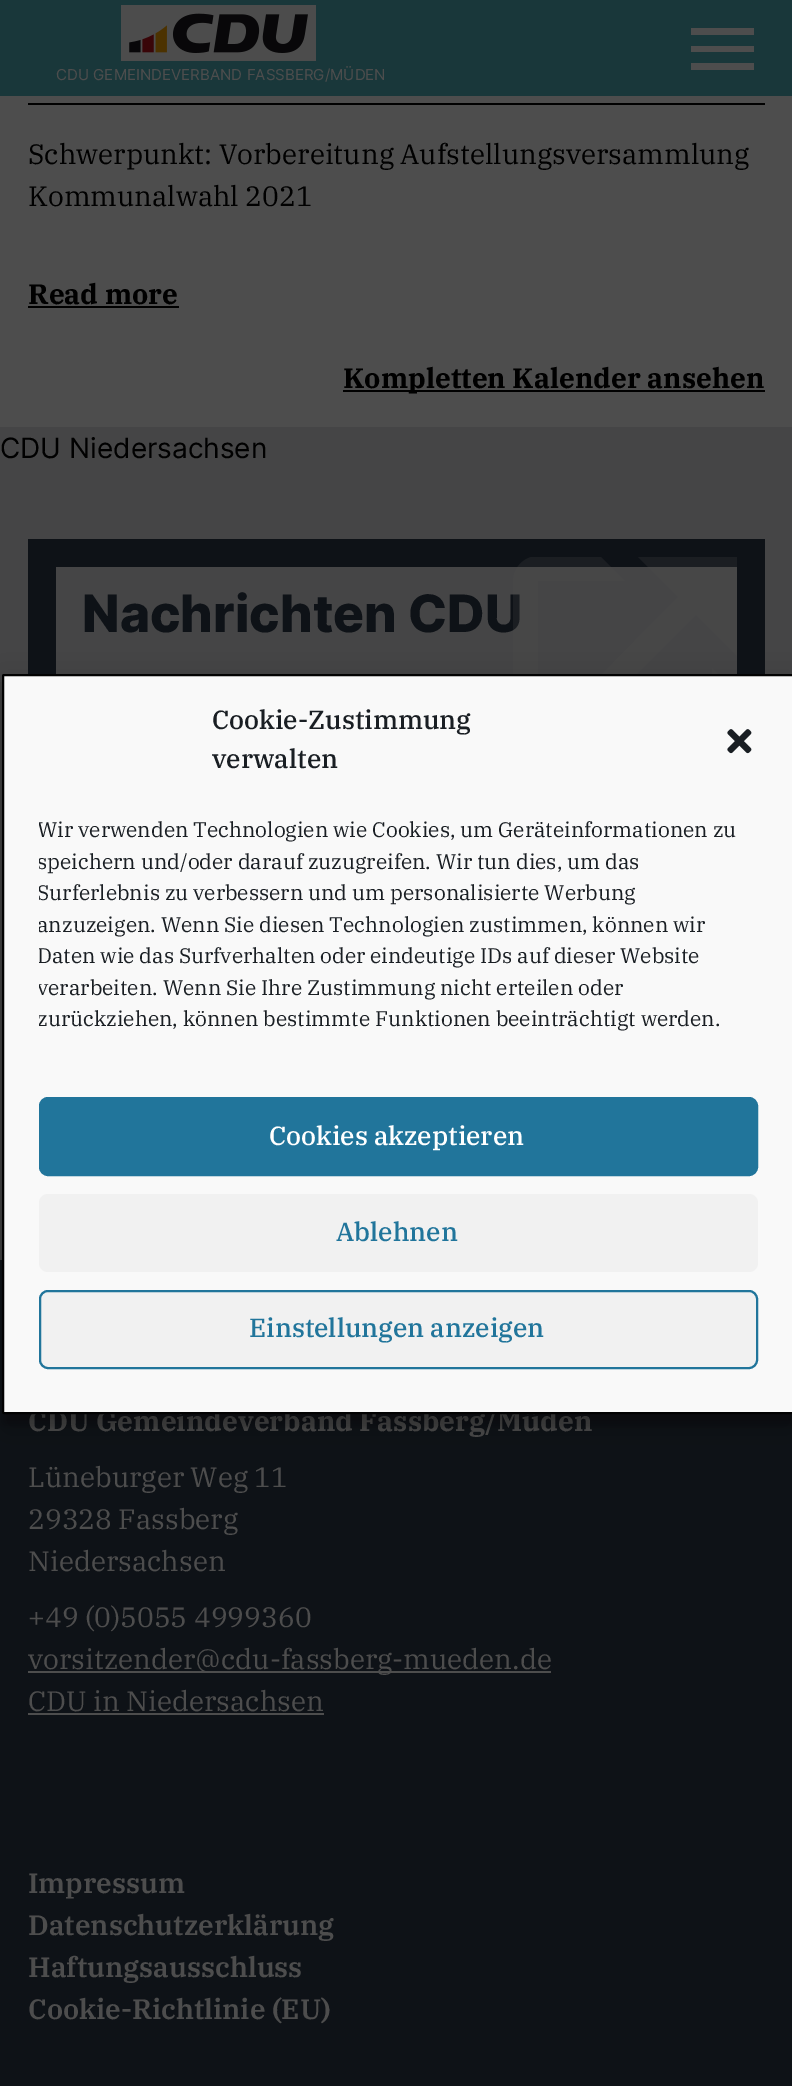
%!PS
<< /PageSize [792 2086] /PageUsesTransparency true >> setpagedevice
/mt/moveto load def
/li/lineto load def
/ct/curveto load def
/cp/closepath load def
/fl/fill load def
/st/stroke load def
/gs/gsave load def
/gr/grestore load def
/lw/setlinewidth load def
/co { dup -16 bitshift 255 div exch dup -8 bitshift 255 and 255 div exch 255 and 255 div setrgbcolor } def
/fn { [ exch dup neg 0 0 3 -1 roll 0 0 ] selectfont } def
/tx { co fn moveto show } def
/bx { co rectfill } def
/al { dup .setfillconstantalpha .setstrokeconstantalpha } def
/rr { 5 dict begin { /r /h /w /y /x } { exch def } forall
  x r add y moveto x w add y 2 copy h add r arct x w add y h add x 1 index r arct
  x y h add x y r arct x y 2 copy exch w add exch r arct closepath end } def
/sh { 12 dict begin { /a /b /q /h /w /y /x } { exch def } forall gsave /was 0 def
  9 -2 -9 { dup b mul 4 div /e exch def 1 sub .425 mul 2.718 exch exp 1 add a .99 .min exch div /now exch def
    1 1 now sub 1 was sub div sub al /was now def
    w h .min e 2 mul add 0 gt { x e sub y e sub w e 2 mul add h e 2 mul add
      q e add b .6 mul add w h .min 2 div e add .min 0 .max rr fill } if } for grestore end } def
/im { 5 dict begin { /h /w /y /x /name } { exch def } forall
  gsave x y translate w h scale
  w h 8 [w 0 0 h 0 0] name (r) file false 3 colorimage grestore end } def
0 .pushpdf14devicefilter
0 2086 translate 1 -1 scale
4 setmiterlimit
0 0 792 2086 16#4D4D4D bx
0 0 792 96 16#19373A bx
16#4D4D4D co
754 70 mt 691 70 li 691 63 li 754 63 li cp 754 52 mt 691 52 li 691 46 li 754 46 li cp 754 35 mt 691 35 li 691 28 li 754 28 li cp fl
(media/1.raw) 121 5 195 56 im
28 103 737 2 16#000000 bx
28 306 151 2 16#000000 bx
343 390 422 2 16#000000 bx
0 427 792 833 16#454546 bx
28 539 737 135 16#0E1217 bx
56 567 681 107 16#454546 bx
gs
513 557 224 224 rectclip
0.2 al
16#4D4D4D co
637 556 mt 678 597 li 591 685 li 609 702 li 696 615 li 737 656 li 737 556 li cp fl
gr
0 1260 792 826 16#0E1217 bx
28 1671 523 2 16#4D4D4D bx
28 1713 296 2 16#4D4D4D bx
(CDU GEMEINDEVERBAND FASSBERG/MÜDEN) 56 80 /Inter-Regular 15.1 16#4D4D4D tx
(Schwerpunkt: Vorbereitung Aufstellungsversammlung) 28 164 /IBMPlexSerif-Regular 28 16#000000 tx
(Kommunalwahl 2021) 28 206 /IBMPlexSerif-Regular 28 16#000000 tx
(Read more) 28 304 /IBMPlexSerif-Bold 28 16#000000 tx
(Kompletten Kalender ansehen) 343 388 /IBMPlexSerif-Bold 28 16#000000 tx
(CDU Niedersachsen) 0 458 /Inter-Regular 28 16#000000 tx
(Nachrichten CDU) 82 632 /Inter-ExtraBold 51.5 16#0E1217 tx
gs
513 557 224 224 rectclip
0.2 al
16#4D4D4D co
712 756 mt 538 756 li 538 581 li 625 581 li 600 556 li 538 556 li 524 556 513 568 513 581 ct 513 756 li 513 769 524 780 538 780 ct 712 780 li 726 780 737 769 737 756 ct 737 693 li 712 668 li cp fl
gr
(CDU Gemeindeverband Fassberg/Müden) 28 1431 /IBMPlexSerif-Bold 28 16#4D4D4D tx
(Lüneburger Weg 11) 28 1487 /IBMPlexSerif-Regular 28 16#4D4D4D tx
(29328 Fassberg) 28 1529 /IBMPlexSerif-Regular 28 16#4D4D4D tx
(Niedersachsen) 28 1571 /IBMPlexSerif-Regular 28 16#4D4D4D tx
(+49 \(0\)5055 4999360) 28 1627 /IBMPlexSerif-Regular 28 16#4D4D4D tx
(vorsitzender@cdu-fassberg-mueden.de) 28 1669 /IBMPlexSerif-Regular 28 16#4D4D4D tx
(CDU in Niedersachsen) 28 1711 /IBMPlexSerif-Regular 28 16#4D4D4D tx
(Impressum) 28 1893 /IBMPlexSerif-SemiBold 28 16#4D4D4D tx
(Datenschutzerklärung) 28 1935 /IBMPlexSerif-SemiBold 28 16#4D4D4D tx
(Haftungsausschluss) 28 1977 /IBMPlexSerif-SemiBold 28 16#4D4D4D tx
(Cookie-Richtlinie \(EU\)) 28 2019 /IBMPlexSerif-SemiBold 28 16#4D4D4D tx
16#000000 co
2 684 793 741 2 5 .23 sh
2 691 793 741 2 17.5 .19 sh
16#F9F9F9 co
3 675 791 738 1 rr gs fl gr
16#020202 co
2 lw
st
(Cookie-Zustimmung) 212 729 /IBMPlexSerif-Medium 26.25 16#191E23 tx
(verwalten) 212 768 /IBMPlexSerif-Medium 26.25 16#191E23 tx
(media/2.raw) 727 729 25 25 im
gs
39 816 719 229 rectclip
(Wir verwenden Technologien wie Cookies, um Geräteinformationen zu) 37 837 /IBMPlexSerif-Regular 21 16#191E23 tx
(speichern und/oder darauf zuzugreifen. Wir tun dies, um das) 37 869 /IBMPlexSerif-Regular 21 16#191E23 tx
(Surferlebnis zu verbessern und um personalisierte Werbung) 37 900 /IBMPlexSerif-Regular 21 16#191E23 tx
(anzuzeigen. Wenn Sie diesen Technologien zustimmen, können wir) 37 932 /IBMPlexSerif-Regular 21 16#191E23 tx
(Daten wie das Surfverhalten oder eindeutige IDs auf dieser Website) 37 963 /IBMPlexSerif-Regular 21 16#191E23 tx
(verarbeiten. Wenn Sie Ihre Zustimmung nicht erteilen oder) 37 995 /IBMPlexSerif-Regular 21 16#191E23 tx
(zurückziehen, können bestimmte Funktionen beeinträchtigt werden.) 37 1026 /IBMPlexSerif-Regular 21 16#191E23 tx
gr
16#21759B co
40 1098 717 77 8 rr gs fl gr
st
(Cookies akzeptieren) 269 1145 /IBMPlexSerif-Medium 26.25 16#FFFFFF tx
16#F1F1F1 co
39 1194 719 78 9 rr fl
(Ablehnen) 336 1241 /IBMPlexSerif-Medium 26.25 16#21759B tx
16#F1F1F1 co
40 1291 717 77 8 rr gs fl gr
16#21759B co
st
(Einstellungen anzeigen) 249 1337 /IBMPlexSerif-Medium 26.25 16#21759B tx
.poppdf14devicefilter showpage
